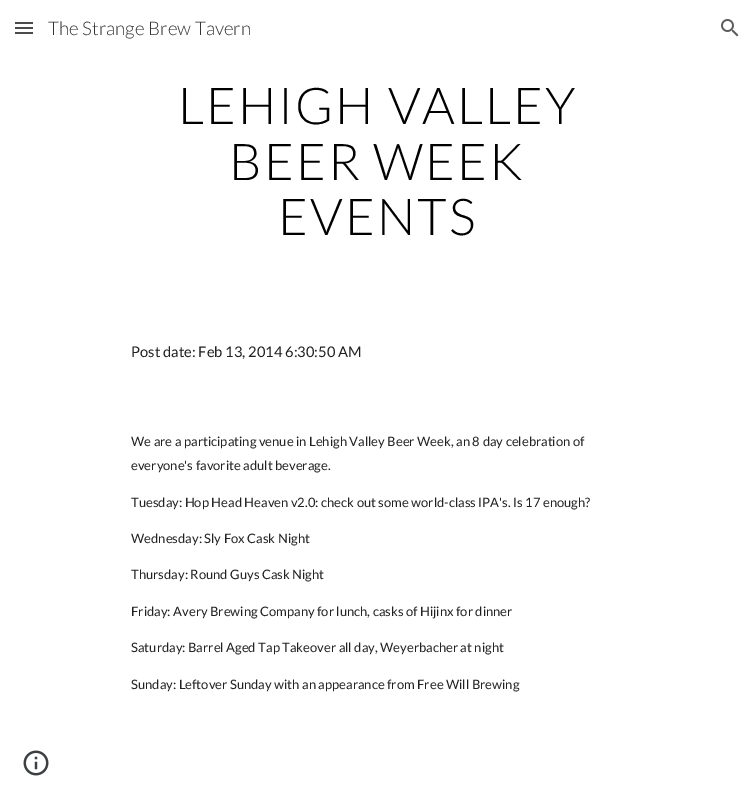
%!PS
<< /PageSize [754 810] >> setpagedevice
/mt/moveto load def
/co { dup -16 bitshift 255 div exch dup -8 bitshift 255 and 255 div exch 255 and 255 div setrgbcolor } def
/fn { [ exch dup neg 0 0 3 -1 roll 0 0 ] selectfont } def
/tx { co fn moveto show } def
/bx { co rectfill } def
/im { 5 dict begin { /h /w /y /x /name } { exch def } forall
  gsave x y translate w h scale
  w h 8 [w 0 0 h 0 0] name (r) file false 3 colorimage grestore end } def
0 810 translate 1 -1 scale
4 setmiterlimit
0 0 754 810 16#FFFFFF bx
15 22 18 2 16#4B4B4B bx
15 27 18 2 16#4B4B4B bx
15 32 18 2 16#4B4B4B bx
(media/1.raw) 721 19 18 18 im
(media/2.raw) 23 750 26 26 im
(The Strange Brew Tavern) 48 35 /Lato-Light 18.75 16#333333 tx
/Lato-Light 50.75 fn
16#000000 co
178 124 mt 2 0 (LEHIGH VALLEY) ashow
229 180 mt 2 0 (BEER WEEK) ashow
278 235 mt 2 0 (EVENTS) ashow
(Post date: Feb 13, 2014 6:30:50 AM) 131 357 /Lato-Regular 14.7 16#212121 tx
(We are a participating venue in Lehigh Valley Beer Week, an 8 day celebration of) 131 446 /Lato-Regular 13 16#212121 tx
(everyone's favorite adult beverage.) 131 470 /Lato-Regular 13 16#212121 tx
(Tuesday: Hop Head Heaven v2.0: check out some world-class IPA's. Is 17 enough?) 131 507 /Lato-Regular 13 16#212121 tx
(Wednesday: Sly Fox Cask Night) 131 543 /Lato-Regular 13 16#212121 tx
(Thursday: Round Guys Cask Night) 131 579 /Lato-Regular 13 16#212121 tx
(Friday: Avery Brewing Company for lunch, casks of Hijinx for dinner) 131 616 /Lato-Regular 13 16#212121 tx
(Saturday: Barrel Aged Tap Takeover all day, Weyerbacher at night) 131 652 /Lato-Regular 13 16#212121 tx
(Sunday: Leftover Sunday with an appearance from Free Will Brewing) 131 689 /Lato-Regular 13 16#212121 tx
showpage
